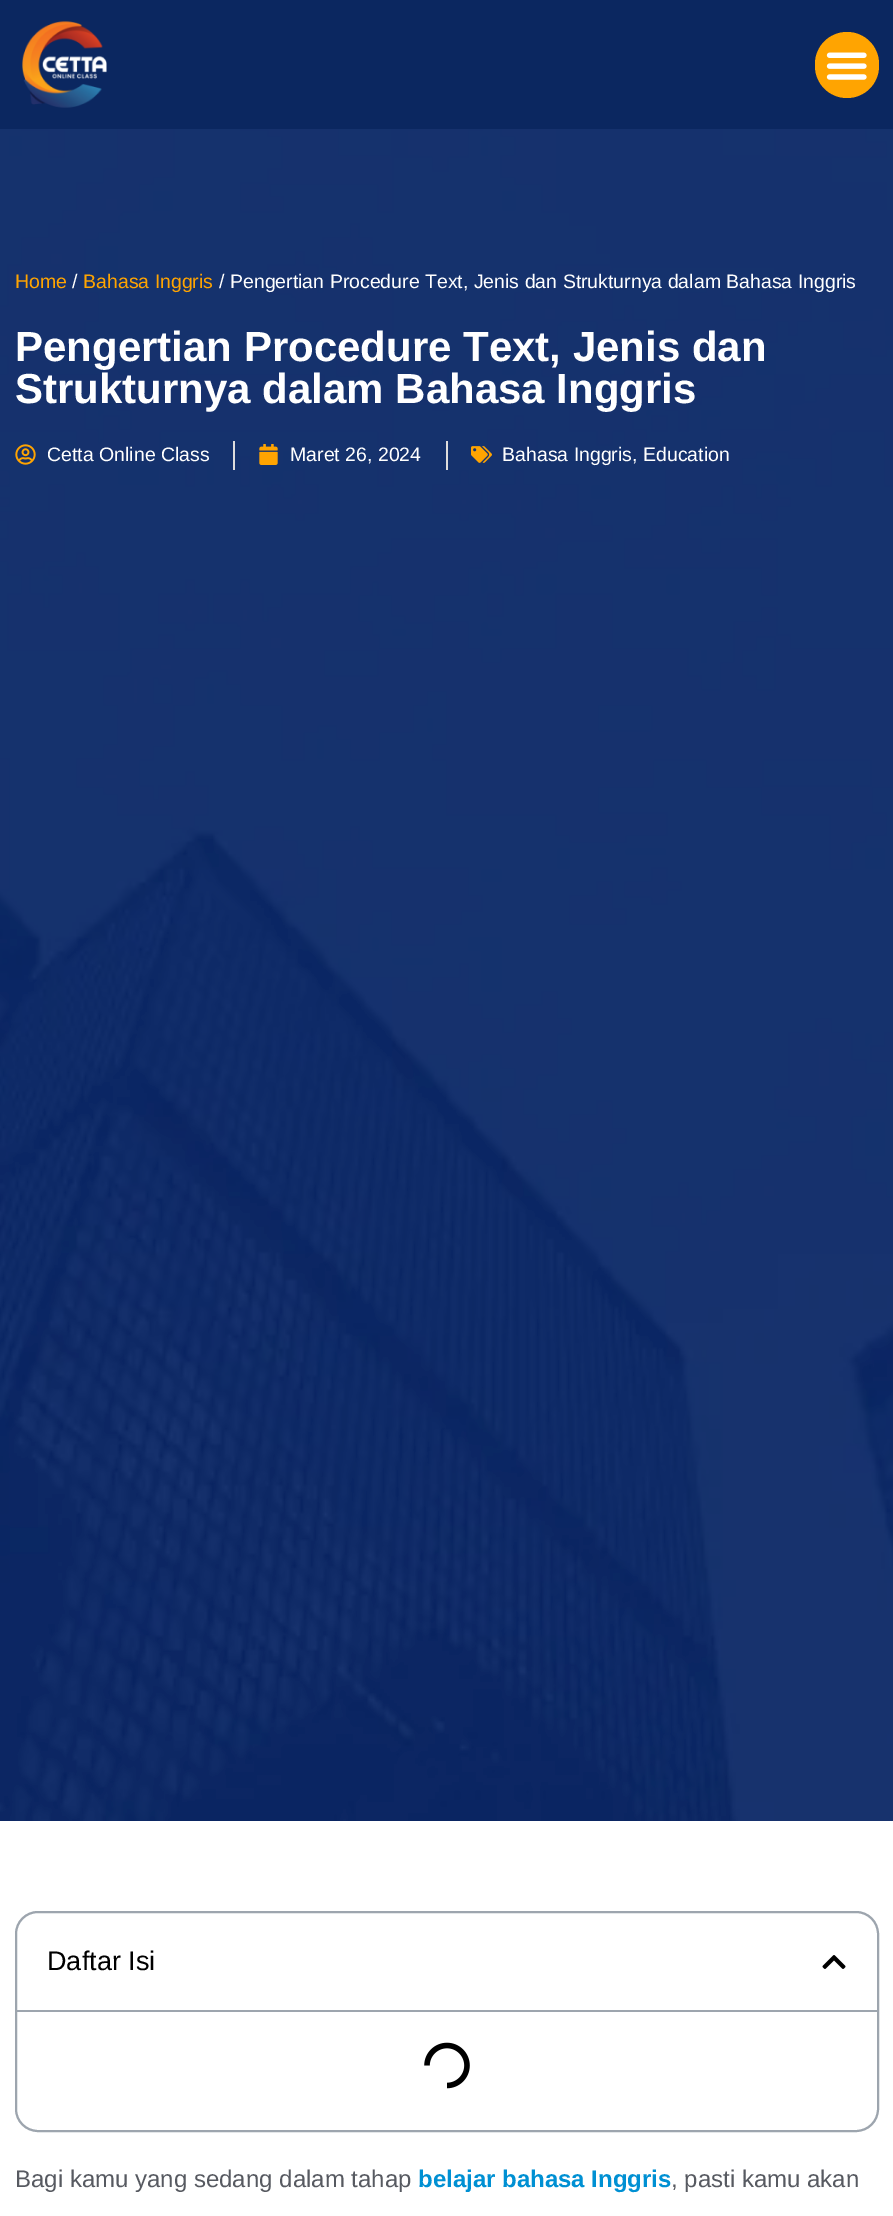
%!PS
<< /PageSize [893 2216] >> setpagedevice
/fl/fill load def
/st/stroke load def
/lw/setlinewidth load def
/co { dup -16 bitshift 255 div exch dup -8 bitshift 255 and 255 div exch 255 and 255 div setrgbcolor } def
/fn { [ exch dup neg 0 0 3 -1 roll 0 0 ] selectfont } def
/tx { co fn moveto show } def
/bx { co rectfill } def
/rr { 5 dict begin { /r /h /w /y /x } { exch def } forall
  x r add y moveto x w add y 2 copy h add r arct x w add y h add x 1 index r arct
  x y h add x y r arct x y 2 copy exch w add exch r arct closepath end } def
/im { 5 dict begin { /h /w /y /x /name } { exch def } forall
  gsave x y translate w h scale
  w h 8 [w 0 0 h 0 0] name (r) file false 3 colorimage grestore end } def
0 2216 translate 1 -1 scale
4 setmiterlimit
0 0 893 2216 16#FFFFFF bx
0 0 893 1821 16#0B2760 bx
(media/1.raw) 22 21 85 87 im
16#FFA401 co
815 32 64 66 32 rr fl
(media/2.raw) 826 52 41 28 im
(media/3.raw) 0 129 893 1692 im
(media/4.raw) 15 444 21 21 im
233 441 2 29 16#DDDDDD bx
(media/5.raw) 259 444 19 21 im
446 441 2 29 16#DDDDDD bx
(media/6.raw) 471 446 21 17 im
16#9DA5AE co
2 lw
16 1912 862 219 22 rr st
17 2010 861 2 16#9DA5AE bx
(media/7.raw) 822 1955 24 14 im
(media/8.raw) 424 2042 46 47 im
(Home) 15 288 /LiberationSans-Regular 19.5 16#FFA401 tx
(/) 72 288 /LiberationSans-Regular 19.5 16#FFFFFF tx
(Bahasa Inggris) 83 288 /LiberationSans-Regular 19.5 16#FFA401 tx
(/ Pengertian Procedure Text, Jenis dan Strukturnya dalam Bahasa Inggris) 219 288 /LiberationSans-Regular 19.5 16#FFFFFF tx
(Pengertian Procedure Text, Jenis dan) 15 361 /LiberationSans-Bold 42 16#FFFFFF tx
(Strukturnya dalam Bahasa Inggris) 15 403 /LiberationSans-Bold 42 16#FFFFFF tx
(Cetta Online Class) 47 461 /LiberationSans-Regular 19.5 16#FFFFFF tx
(Maret 26, 2024) 290 461 /LiberationSans-Regular 19.5 16#FFFFFF tx
(Bahasa Inggris, Education) 502 461 /LiberationSans-Regular 19.5 16#FFFFFF tx
(Daftar Isi) 47 1970 /LiberationSans-Regular 27 16#000000 tx
(Bagi kamu yang sedang dalam tahap) 15 2187 /LiberationSans-Regular 24 16#575A61 tx
(belajar bahasa Inggris) 418 2187 /LiberationSans-Bold 24 16#0090D3 tx
(, pasti kamu akan) 671 2187 /LiberationSans-Regular 24 16#575A61 tx
showpage
